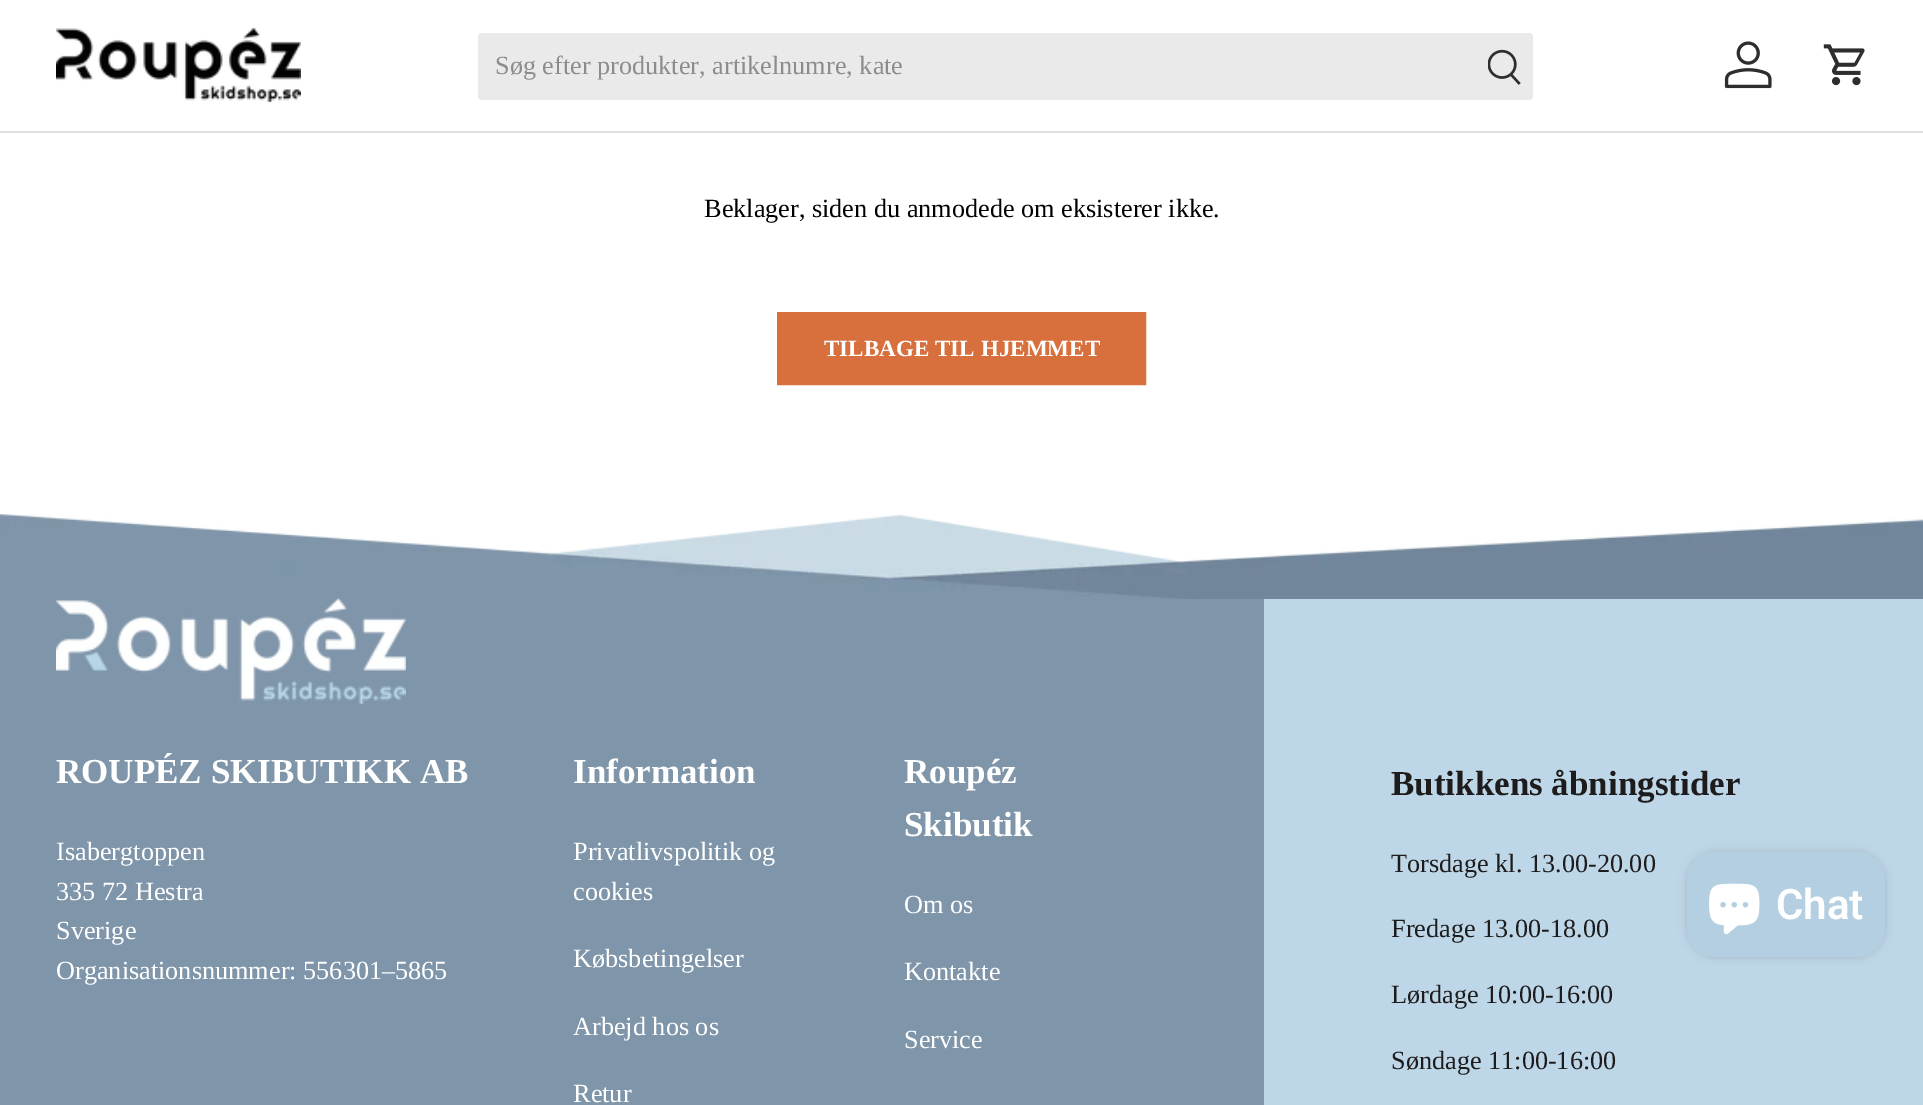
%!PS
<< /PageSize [1923 1105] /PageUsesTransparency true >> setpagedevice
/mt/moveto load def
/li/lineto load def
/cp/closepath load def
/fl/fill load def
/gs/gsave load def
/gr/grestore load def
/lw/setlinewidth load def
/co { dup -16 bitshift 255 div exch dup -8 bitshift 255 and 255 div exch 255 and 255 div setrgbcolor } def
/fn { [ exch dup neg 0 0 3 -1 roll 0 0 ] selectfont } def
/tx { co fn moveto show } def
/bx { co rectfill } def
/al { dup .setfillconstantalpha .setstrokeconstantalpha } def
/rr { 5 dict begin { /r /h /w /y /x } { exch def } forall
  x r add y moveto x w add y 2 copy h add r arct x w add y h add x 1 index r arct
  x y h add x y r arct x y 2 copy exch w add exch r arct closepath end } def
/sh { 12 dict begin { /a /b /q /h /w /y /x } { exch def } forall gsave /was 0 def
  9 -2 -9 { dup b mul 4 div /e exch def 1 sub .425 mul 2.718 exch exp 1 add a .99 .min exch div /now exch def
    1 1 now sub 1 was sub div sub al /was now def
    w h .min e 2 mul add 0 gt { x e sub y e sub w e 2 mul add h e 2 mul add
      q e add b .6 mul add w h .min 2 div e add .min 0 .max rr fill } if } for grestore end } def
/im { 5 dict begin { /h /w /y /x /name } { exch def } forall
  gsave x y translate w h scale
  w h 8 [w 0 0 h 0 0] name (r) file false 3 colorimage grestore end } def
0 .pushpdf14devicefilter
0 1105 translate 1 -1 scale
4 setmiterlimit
0 0 1923 1105 16#FFFFFF bx
0 131 1923 2 16#E0E0E0 bx
(media/1.raw) 56 28 245 74 im
16#EAEAEA co
478 33 1055 67 4 rr fl
(media/2.raw) 1488 49 33 36 im
(media/3.raw) 1724 41 48 48 im
(media/4.raw) 1823 44 42 42 im
gs 779 314 mt 1144 314 li 1144 383 li 779 383 li cp clip newpath
<< /ShadingType 2 /ColorSpace /DeviceRGB /Coords [71 217 1121 479] /Extend [true true] /Function << /FunctionType 3 /Domain [0 1] /Functions [<< /FunctionType 2 /Domain [0 1] /C0 [.878 .557 .404] /C1 [.878 .557 .404] /N 1 >> << /FunctionType 2 /Domain [0 1] /C0 [.843 .439 .239] /C1 [.843 .439 .239] /N 1 >>] /Bounds [.6] /Encode [0 1 0 1] >> >> shfill gr
16#D7703D co
2 lw
778 313 367 71 rectstroke
(media/5.raw) 0 514 1923 85 im
0 599 1264 506 16#7F95A9 bx
1264 599 659 506 16#BED7E8 bx
(media/6.raw) 56 598 350 106 im
16#000000 co
1687 852 198 105 28 4.5 .15 sh
16#B4CFE2 co
1687 852 198 105 28 rr fl
(media/7.raw) 1709 883 51 52 im
(Søg efter produkter, artikelnumre, kate) 495 74 /LiberationSerif-Regular 26.25 16#8C8C8C tx
(Beklager, siden du anmodede om eksisterer ikke.) 704 217 /LiberationSerif-Regular 26.25 16#000000 tx
(TILBAGE TIL HJEMMET) 824 356 /LiberationSerif-Bold 23.1 16#FFFFFF tx
(ROUPÉZ SKIBUTIKK AB) 56 783 /LiberationSerif-Bold 35 16#FFFFFF tx
(Isabergtoppen) 56 860 /LiberationSerif-Regular 26.25 16#FFFFFF tx
(335 72 Hestra) 56 900 /LiberationSerif-Regular 26.25 16#FFFFFF tx
(Sverige) 56 939 /LiberationSerif-Regular 26.25 16#FFFFFF tx
(Organisationsnummer: 556301–5865) 56 979 /LiberationSerif-Regular 26.25 16#FFFFFF tx
(Information) 573 783 /LiberationSerif-Bold 35 16#FFFFFF tx
(Privatlivspolitik og) 573 860 /LiberationSerif-Regular 26.25 16#FFFFFF tx
(cookies) 573 900 /LiberationSerif-Regular 26.25 16#FFFFFF tx
(Købsbetingelser) 573 967 /LiberationSerif-Regular 26.25 16#FFFFFF tx
(Arbejd hos os) 573 1035 /LiberationSerif-Regular 26.25 16#FFFFFF tx
(Retur) 573 1102 /LiberationSerif-Regular 26.25 16#FFFFFF tx
(Roupéz) 904 783 /LiberationSerif-Bold 35 16#FFFFFF tx
(Skibutik) 904 836 /LiberationSerif-Bold 35 16#FFFFFF tx
(Om os) 904 913 /LiberationSerif-Regular 26.25 16#FFFFFF tx
(Kontakte) 904 980 /LiberationSerif-Regular 26.25 16#FFFFFF tx
(Service) 904 1048 /LiberationSerif-Regular 26.25 16#FFFFFF tx
(Butikkens åbningstider) 1391 795 /LiberationSerif-Bold 35 16#1D1B1B tx
(Torsdage kl. 13.00-20.00) 1391 872 /LiberationSerif-Regular 26.25 16#1D1B1B tx
(Fredage 13.00-18.00) 1391 937 /LiberationSerif-Regular 26.25 16#1D1B1B tx
(Lørdage 10:00-16:00) 1391 1003 /LiberationSerif-Regular 26.25 16#1D1B1B tx
(Søndage 11:00-16:00) 1391 1069 /LiberationSerif-Regular 26.25 16#1D1B1B tx
(Chat) 1776 919 /Roboto-SemiBold 42 16#FFFFFF tx
.poppdf14devicefilter showpage
